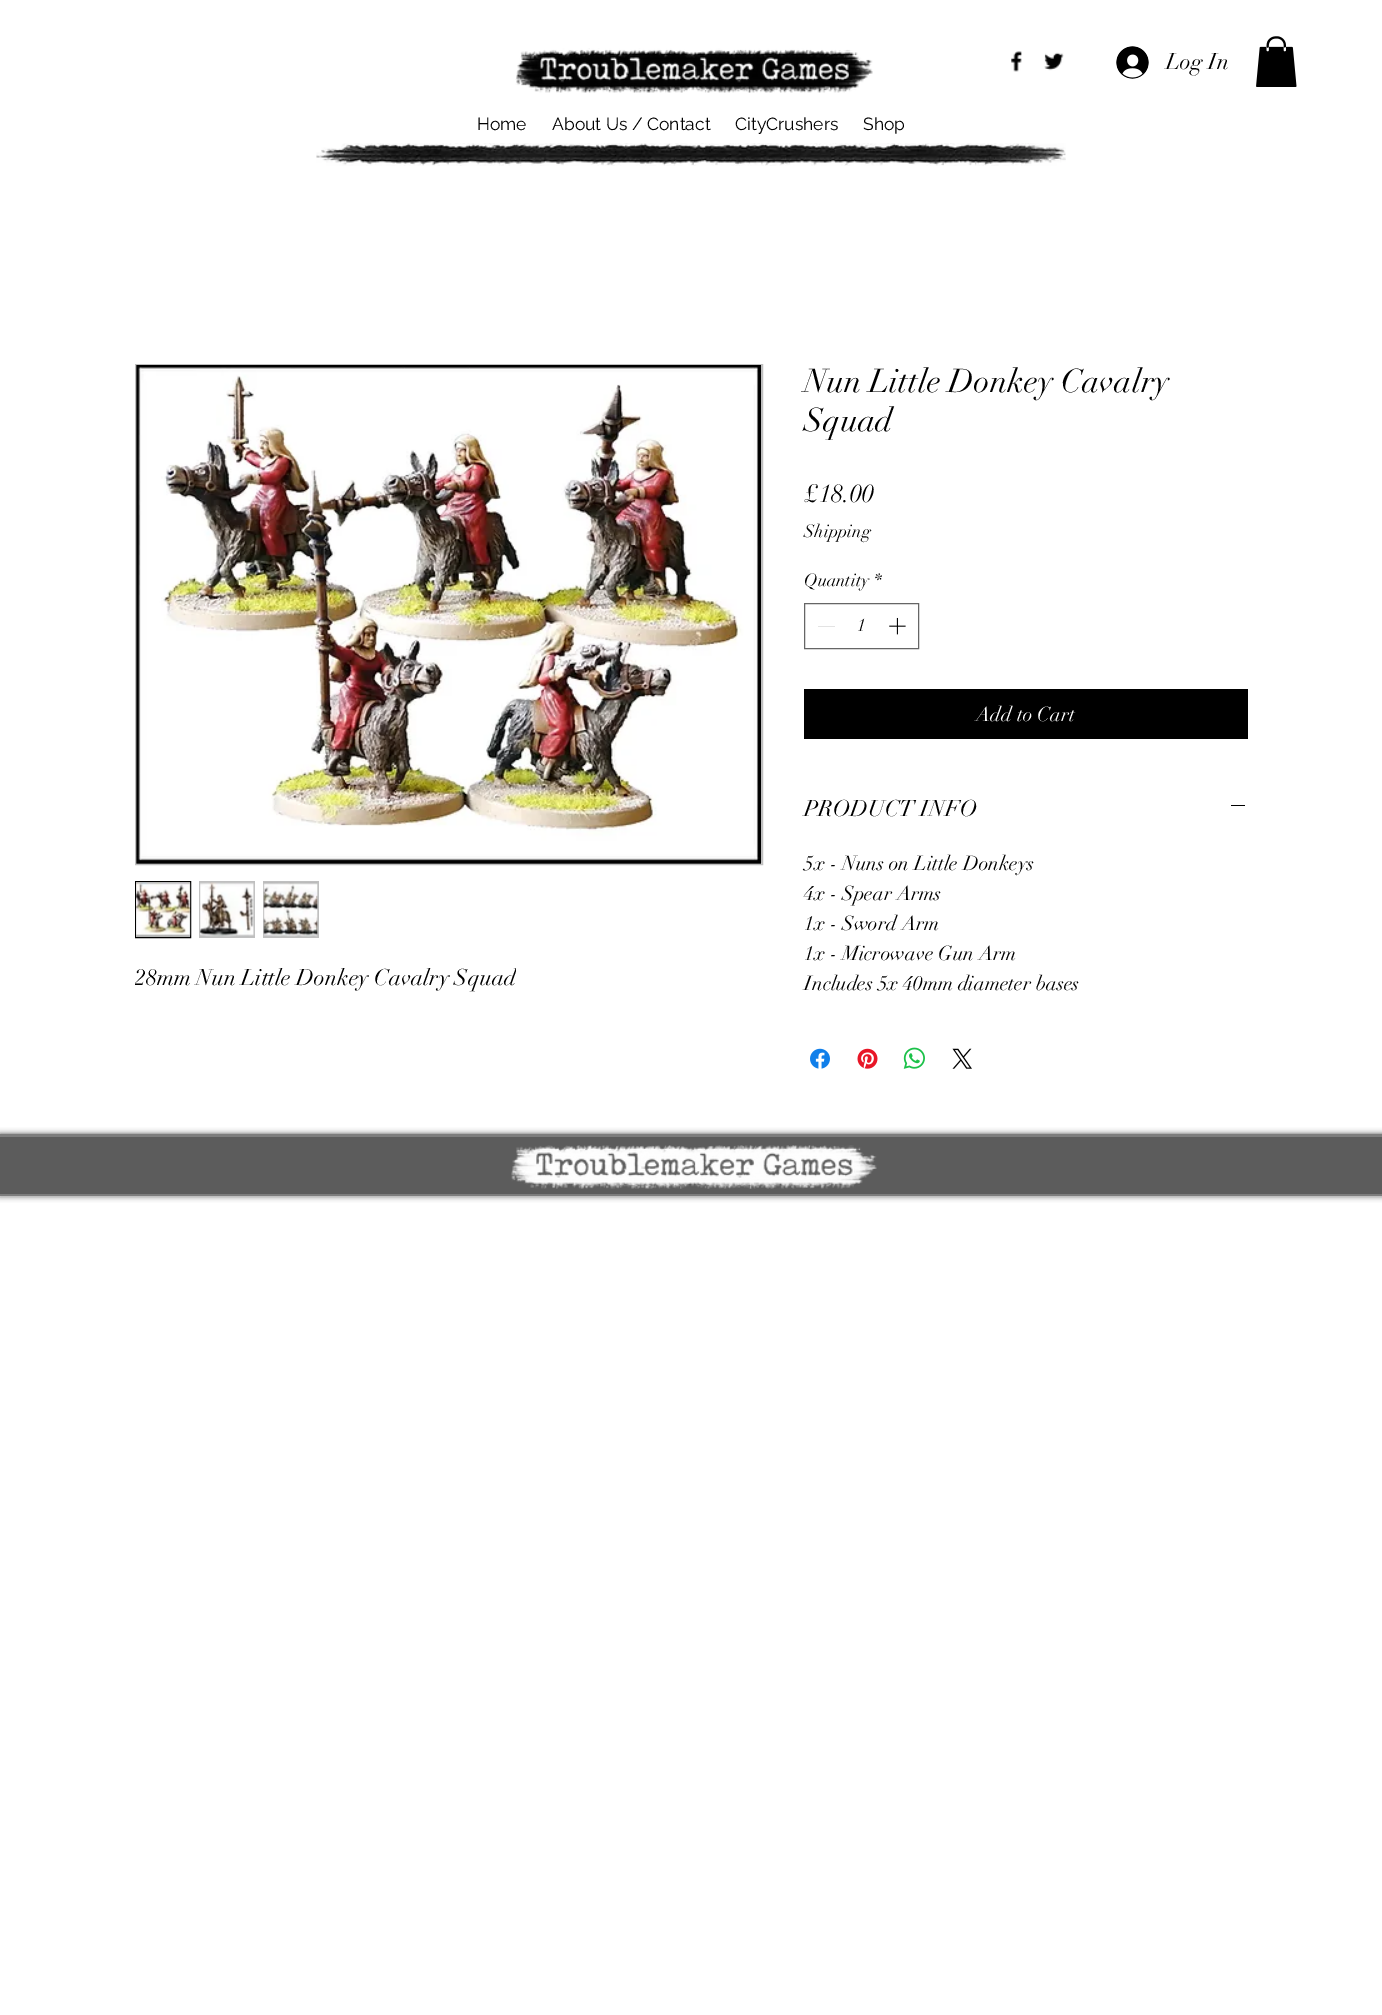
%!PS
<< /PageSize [1382 2015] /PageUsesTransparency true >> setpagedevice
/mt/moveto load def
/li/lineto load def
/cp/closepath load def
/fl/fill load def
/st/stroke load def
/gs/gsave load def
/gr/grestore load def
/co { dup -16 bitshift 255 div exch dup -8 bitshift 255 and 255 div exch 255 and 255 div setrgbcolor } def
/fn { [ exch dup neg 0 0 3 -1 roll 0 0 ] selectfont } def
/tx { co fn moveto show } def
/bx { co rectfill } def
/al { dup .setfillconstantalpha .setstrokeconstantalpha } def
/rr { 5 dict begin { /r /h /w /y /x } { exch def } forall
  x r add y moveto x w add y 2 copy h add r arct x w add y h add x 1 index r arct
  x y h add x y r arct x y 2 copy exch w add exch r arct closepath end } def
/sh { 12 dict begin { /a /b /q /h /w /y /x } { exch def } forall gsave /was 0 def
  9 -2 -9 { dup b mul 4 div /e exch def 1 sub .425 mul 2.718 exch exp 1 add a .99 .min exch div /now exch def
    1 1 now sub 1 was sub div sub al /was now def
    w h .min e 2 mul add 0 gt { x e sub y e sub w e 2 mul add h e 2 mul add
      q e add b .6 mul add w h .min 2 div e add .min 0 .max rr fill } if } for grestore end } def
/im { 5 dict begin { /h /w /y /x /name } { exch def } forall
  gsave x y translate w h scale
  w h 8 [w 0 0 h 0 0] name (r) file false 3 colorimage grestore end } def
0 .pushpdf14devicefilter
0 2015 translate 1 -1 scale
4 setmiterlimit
0 0 1382 2015 16#FFFFFF bx
(media/1.raw) 515 48 358 45 im
(media/2.raw) 1011 51 11 21 im
(media/3.raw) 1044 52 20 19 im
(media/4.raw) 1116 46 33 33 im
(media/5.raw) 1256 36 41 51 im
(media/6.raw) 316 143 750 23 im
16#BFBFBF co
135.5 364.5 627 500 rectstroke
(media/7.raw) 136 365 626 499 im
135.5 881.5 mt 190.5 881.5 li 190.5 937.5 li 135.5 937.5 li cp gs fl gr
16#000000 co
st
(media/8.raw) 136 882 55 55 im
199 881 56 57 16#BFBFBF bx
(media/9.raw) 199 882 56 55 im
263 881 56 57 16#BFBFBF bx
(media/10.raw) 263 882 55 55 im
16#666666 co
804.5 603.5 114 45 rectstroke
818 626 17 1 16#E3E3E3 bx
(media/11.raw) 889 617 17 18 im
804 689 444 50 16#000000 bx
1231 805 14 1 16#000000 bx
(media/12.raw) 810 1048 20 21 im
(media/13.raw) 857 1048 21 21 im
(media/14.raw) 903 1047 22 22 im
(media/15.raw) 952 1048 20 21 im
0 1134 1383 62 0 3 .7 sh
0 1137 1382 59 16#5C5C5C bx
0 1134 1382 3 16#7D7D7D bx
0.2 al
0 1194 1382 3 16#FFFFFF bx
1 al
(media/16.raw) 511 1145 366 44 im
(Log In) 1166 69 /didot-Regular 22.5 16#000000 tx
(Home) 477 130 /Raleway-Regular 17.5 16#000000 tx
(About Us / Contact) 552 130 /Raleway-Regular 17.5 16#000000 tx
(CityCrushers) 735 130 /Raleway-Regular 17.5 16#000000 tx
(Shop) 863 130 /Raleway-Regular 17.5 16#000000 tx
gs
135 963 381 30 rectclip
(28mm Nun Little Donkey Cavalry Squad) 135 985 /didot-Regular 22.5 16#000000 tx
gr
(Nun Little Donkey Cavalry) 804 392 /didot-Regular 32.5 16#000000 tx
(Squad) 804 431 /didot-Regular 32.5 16#000000 tx
(£18.00) 804 502 /didot-Regular 25 16#000000 tx
(Shipping) 804 537 /didot-Regular 17.5 16#000000 tx
(Quantity) 804 586 /didot-Regular 17.5 16#000000 tx
(*) 874 586 /didot-Regular 17.5 16#000000 tx
(1) 857 631 /didot-Regular 17.5 16#000000 tx
(Add to Cart) 976 721 /didot-Regular 20 16#FFFFFF tx
(PRODUCT INFO) 804 816 /didot-Regular 22.5 16#000000 tx
(5x - Nuns on Little Donkeys) 804 870 /didot-Regular 20 16#000000 tx
(4x - Spear Arms) 804 900 /didot-Regular 20 16#000000 tx
(1x - Sword Arm) 804 930 /didot-Regular 20 16#000000 tx
(1x - Microwave Gun Arm) 804 960 /didot-Regular 20 16#000000 tx
(Includes 5x 40mm diameter bases) 804 990 /didot-Regular 20 16#000000 tx
.poppdf14devicefilter showpage
